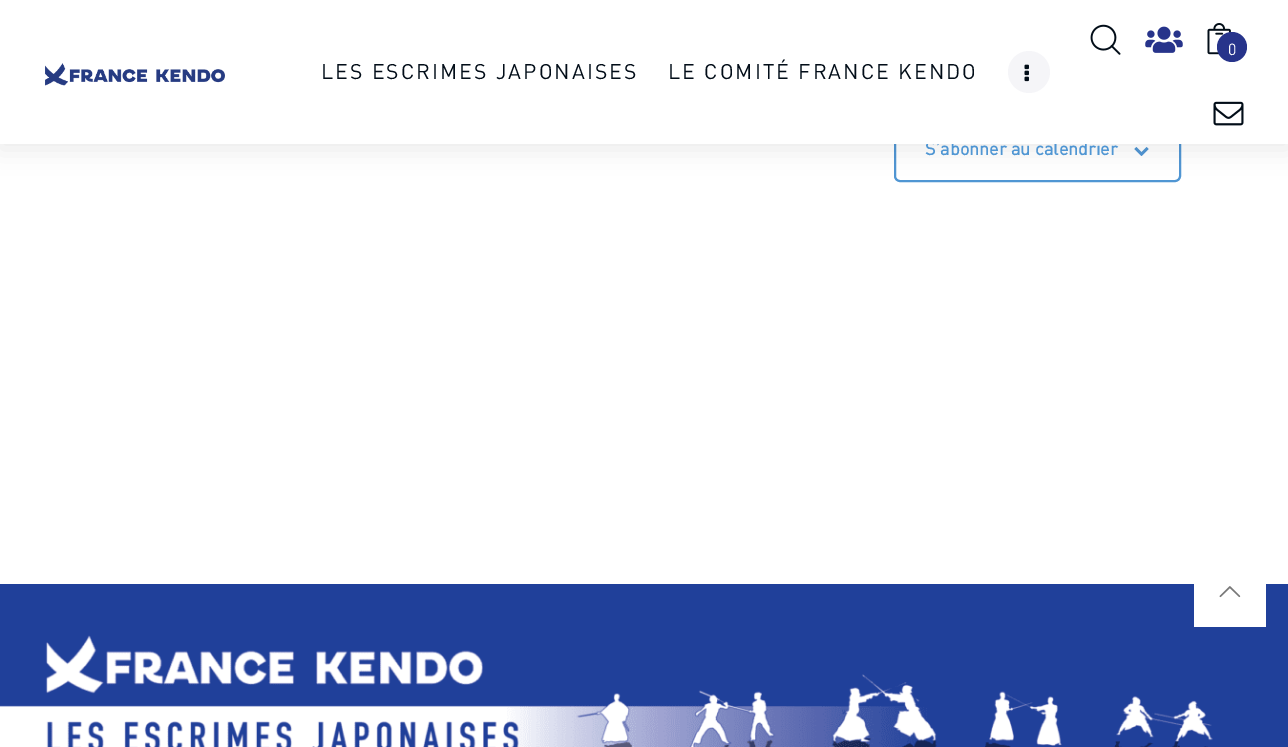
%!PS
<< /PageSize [1288 747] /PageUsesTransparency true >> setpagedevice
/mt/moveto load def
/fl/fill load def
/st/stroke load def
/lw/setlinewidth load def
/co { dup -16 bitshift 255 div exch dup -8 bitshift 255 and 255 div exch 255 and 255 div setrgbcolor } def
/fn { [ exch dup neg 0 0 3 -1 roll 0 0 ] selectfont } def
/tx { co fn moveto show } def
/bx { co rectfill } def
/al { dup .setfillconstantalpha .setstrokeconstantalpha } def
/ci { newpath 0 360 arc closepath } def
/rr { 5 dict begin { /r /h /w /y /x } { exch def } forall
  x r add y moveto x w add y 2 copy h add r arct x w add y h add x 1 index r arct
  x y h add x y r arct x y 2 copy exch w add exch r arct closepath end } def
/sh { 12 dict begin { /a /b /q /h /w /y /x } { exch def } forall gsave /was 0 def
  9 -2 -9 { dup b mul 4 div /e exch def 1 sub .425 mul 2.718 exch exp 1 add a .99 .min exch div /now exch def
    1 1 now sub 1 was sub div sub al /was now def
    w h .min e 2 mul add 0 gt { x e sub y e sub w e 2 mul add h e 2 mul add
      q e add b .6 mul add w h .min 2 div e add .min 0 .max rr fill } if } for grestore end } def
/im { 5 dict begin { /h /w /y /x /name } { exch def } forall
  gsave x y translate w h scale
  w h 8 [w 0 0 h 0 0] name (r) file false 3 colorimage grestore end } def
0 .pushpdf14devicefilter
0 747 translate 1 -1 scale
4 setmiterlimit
0 0 1288 747 16#FFFFFF bx
16#5096D3 co
2 lw
895 118 285 63 5 rr st
(media/7.raw) 1134 147 15 9 im
16#000000 co
0 5 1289 144 0 12 .08 sh
0 584 1288 163 16#20409A bx
(media/8.raw) 0 635 1213 112 im
1194 584 72 43 16#FFFFFF bx
(media/9.raw) 1219 586 22 12 im
(S’abonner au calendrier) 925 155 /DIN-Bold 18 16#5096D3 tx
0 0 1288 144 16#FFFFFF bx
(media/3.raw) 1207 23 24 32 im
16#27348B co
1232 47 15 ci fl
(0) 1228 55 /DIN-Regular 16 16#FFFFFF tx
/DIN-Regular 21 fn
16#020D18 co
321 79 mt 2.1 0 (LES ESCRIMES JAPONAISES) ashow
668 79 mt 2.1 0 (LE COMITÉ FRANCE KENDO) ashow
16#F5F5F8 co
1029 72 21 ci fl
(media/6.raw) 1024 64 5 18 im
(media/1.raw) 1090 24 31 31 im
(media/4.raw) 1213 101 31 25 im
(media/2.raw) 1145 26 38 27 im
(media/5.raw) 45 63 180 23 im
.poppdf14devicefilter showpage
